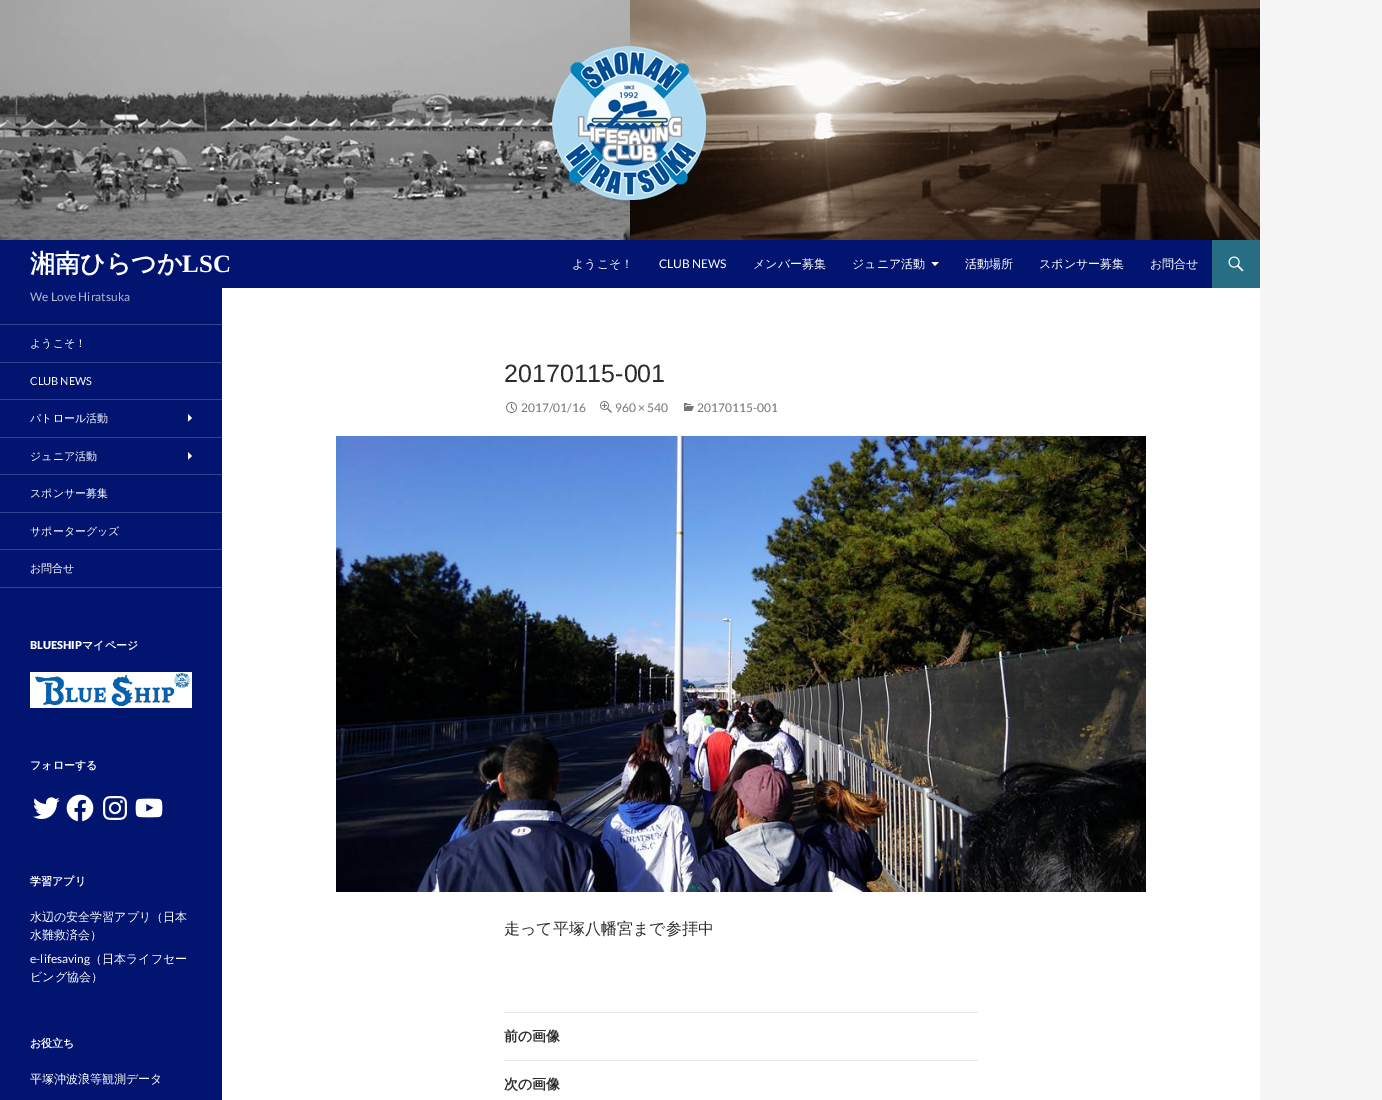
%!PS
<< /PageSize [1382 1100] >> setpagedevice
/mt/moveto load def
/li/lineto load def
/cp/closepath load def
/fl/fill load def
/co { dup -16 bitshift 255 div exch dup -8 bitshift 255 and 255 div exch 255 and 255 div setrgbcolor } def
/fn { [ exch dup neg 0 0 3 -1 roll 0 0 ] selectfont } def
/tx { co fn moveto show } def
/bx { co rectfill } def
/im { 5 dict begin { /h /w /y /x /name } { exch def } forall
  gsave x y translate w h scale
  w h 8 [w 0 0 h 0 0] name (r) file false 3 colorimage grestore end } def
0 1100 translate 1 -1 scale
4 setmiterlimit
0 0 1382 1100 16#F5F5F5 bx
222 288 1038 812 16#FFFFFF bx
(media/1.raw) 0 0 1260 240 im
0 240 1212 48 16#001470 bx
16#FFFFFF co
931.5 262 mt 939 262 li 935 266 li cp fl
1212 240 48 48 16#276E84 bx
(media/2.raw) 1228 256 16 16 im
0 288 222 812 16#001470 bx
0 587 222 1 16#33438D bx
0 324 222 1 16#33438D bx
0 362 222 1 16#33438D bx
0 399 222 1 16#33438D bx
16#FFFFFF co
188 421.5 mt 188 414 li 192 418 li cp fl
0 437 222 1 16#33438D bx
16#FFFFFF co
188 459.5 mt 188 452 li 192 456 li cp fl
0 474 222 1 16#33438D bx
0 512 222 1 16#33438D bx
0 549 222 1 16#33438D bx
(media/3.raw) 30 672 162 36 im
(media/4.raw) 33 797 27 22 im
(media/5.raw) 66 794 28 28 im
(media/6.raw) 103 796 24 24 im
(media/7.raw) 135 798 28 20 im
(media/8.raw) 506 402 11 11 im
(media/9.raw) 600 401 12 12 im
(media/10.raw) 684 403 10 8 im
(media/11.raw) 336 436 810 456 im
504 1012 474 1 16#E6E6E6 bx
504 1060 474 1 16#E6E6E6 bx
(湘南ひらつか) 30 272 /WenQuanYiZenHei-Bold 25 16#FFFFFF tx
(LSC) 182 272 /LiberationSerif-Bold 25 16#FFFFFF tx
(ようこそ！) 572 268 /WenQuanYiZenHei-Medium 12 16#FFFFFF tx
(CLUB NEWS) 659 268 /Lato-Regular 12 16#FFFFFF tx
(メンバー募集) 753 268 /WenQuanYiZenHei-Medium 12 16#FFFFFF tx
(ジュニア活動) 852 268 /WenQuanYiZenHei-Medium 12 16#FFFFFF tx
(活動場所) 965 268 /WenQuanYiZenHei-Medium 12 16#FFFFFF tx
(スポンサー募集) 1039 268 /WenQuanYiZenHei-Medium 12 16#FFFFFF tx
(お問合せ) 1150 268 /WenQuanYiZenHei-Medium 12 16#FFFFFF tx
(We Love Hiratsuka) 30 301 /Lato-Regular 12 16#B3B9D4 tx
(ようこそ！) 30 347 /WenQuanYiZenHei-Medium 11 16#FFFFFF tx
(CLUB NEWS) 30 385 /Lato-Regular 11 16#FFFFFF tx
(パトロール活動) 30 422 /WenQuanYiZenHei-Medium 11 16#FFFFFF tx
(ジュニア活動) 30 460 /WenQuanYiZenHei-Medium 11 16#FFFFFF tx
(スポンサー募集) 30 497 /WenQuanYiZenHei-Medium 11 16#FFFFFF tx
(サポーターグッズ) 30 535 /WenQuanYiZenHei-Medium 11 16#FFFFFF tx
(お問合せ) 30 572 /WenQuanYiZenHei-Medium 11 16#FFFFFF tx
(BLUESHIP) 30 649 /Lato-Black 11 16#FFFFFF tx
(マイページ) 82 649 /WenQuanYiZenHei-Bold 11 16#FFFFFF tx
(フォローする) 30 769 /WenQuanYiZenHei-Bold 11 16#FFFFFF tx
(学習アプリ) 30 885 /WenQuanYiZenHei-Bold 11 16#FFFFFF tx
(水辺の安全学習アプリ（日本) 30 921 /WenQuanYiZenHei-Medium 12 16#FFFFFF tx
(水難救済会）) 30 939 /WenQuanYiZenHei-Medium 12 16#FFFFFF tx
(e-lifesaving) 30 963 /Lato-Regular 12 16#FFFFFF tx
(（日本ライフセー) 90 963 /WenQuanYiZenHei-Medium 12 16#FFFFFF tx
(ビング協会）) 30 981 /WenQuanYiZenHei-Medium 12 16#FFFFFF tx
(お役立ち) 30 1047 /WenQuanYiZenHei-Bold 11 16#FFFFFF tx
(平塚沖波浪等観測データ) 30 1083 /WenQuanYiZenHei-Medium 12 16#FFFFFF tx
(20170115-001) 504 382 /LiberationSans-Regular 25 16#2B2B2B tx
(2017/01/16) 521 412 /Lato-Regular 12 16#767676 tx
(960 × 540) 615 412 /Lato-Regular 12 16#767676 tx
(20170115-001) 697 412 /Lato-Regular 12 16#767676 tx
(走って平塚八幡宮まで参拝中) 504 934 /WenQuanYiZenHei-Medium 16 16#2B2B2B tx
(前の画像) 504 1041 /WenQuanYiZenHei-Bold 14 16#2B2B2B tx
(次の画像) 504 1089 /WenQuanYiZenHei-Bold 14 16#2B2B2B tx
showpage
